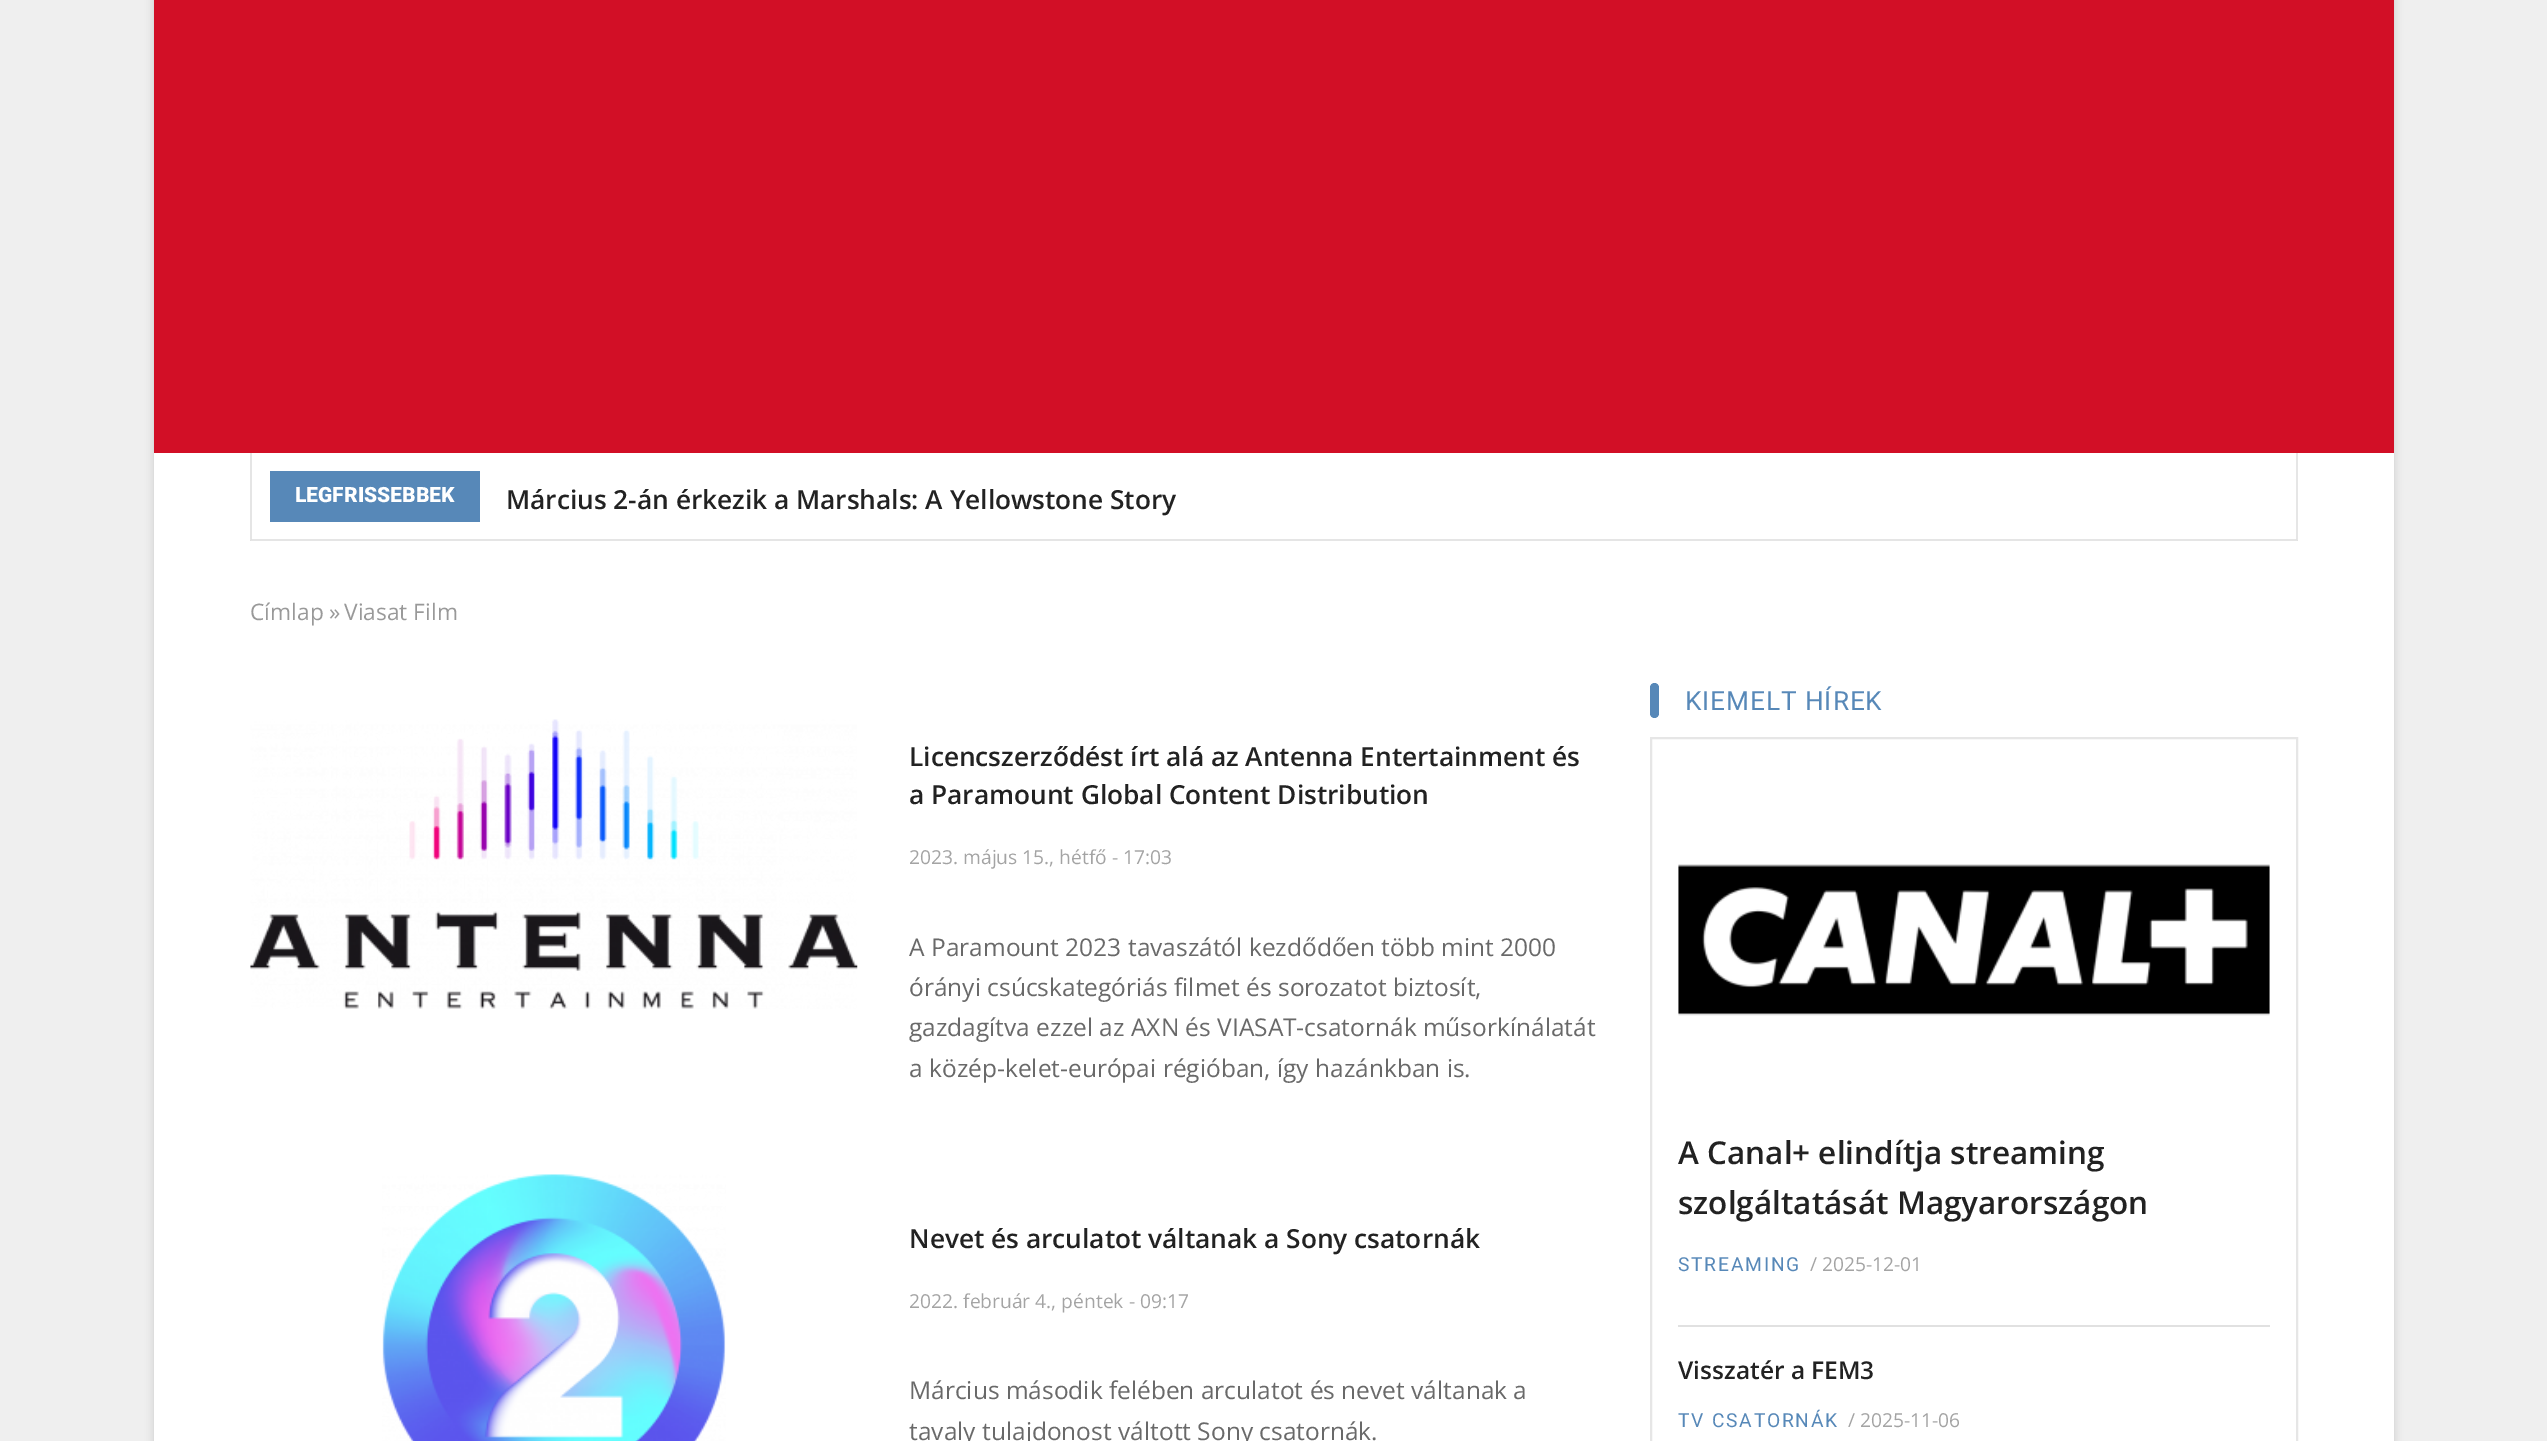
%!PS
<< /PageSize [2547 1441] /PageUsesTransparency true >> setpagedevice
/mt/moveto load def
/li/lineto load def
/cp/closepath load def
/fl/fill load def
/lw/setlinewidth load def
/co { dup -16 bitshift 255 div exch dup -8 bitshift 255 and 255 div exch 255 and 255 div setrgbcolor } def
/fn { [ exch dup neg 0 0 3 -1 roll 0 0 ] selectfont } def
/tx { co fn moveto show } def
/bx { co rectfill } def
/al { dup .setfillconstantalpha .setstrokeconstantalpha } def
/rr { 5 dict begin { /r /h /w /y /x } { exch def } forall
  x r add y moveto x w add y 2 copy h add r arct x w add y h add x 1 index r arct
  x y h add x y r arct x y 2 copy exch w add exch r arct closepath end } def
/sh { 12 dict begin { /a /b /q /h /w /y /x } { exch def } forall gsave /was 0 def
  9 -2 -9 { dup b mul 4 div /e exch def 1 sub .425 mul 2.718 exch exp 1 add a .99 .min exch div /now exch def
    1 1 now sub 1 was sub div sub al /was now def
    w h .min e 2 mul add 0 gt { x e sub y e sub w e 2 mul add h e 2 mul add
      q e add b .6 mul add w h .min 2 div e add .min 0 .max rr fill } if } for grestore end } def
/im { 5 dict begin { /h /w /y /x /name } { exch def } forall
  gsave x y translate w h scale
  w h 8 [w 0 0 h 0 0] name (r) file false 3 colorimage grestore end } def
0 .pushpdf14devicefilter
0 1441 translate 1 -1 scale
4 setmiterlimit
0 0 2547 1441 16#EFEFEF bx
16#000000 co
154 -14 2240 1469 0 4.5 .15 sh
154 453 2240 988 16#FFFFFF bx
154 0 2240 453 16#D20F26 bx
16#E6E6E6 co
2298 453 mt 2298 541 li 2296 539 li 2296 453 li cp fl
0.1 al
16#000000 co
2298 541 mt 250 541 li 252 539 li 2296 539 li cp fl
250 541 mt 250 453 li 252 453 li 252 539 li cp fl
1 al
270 471 210 51 16#5788B8 bx
(media/1.raw) 250 719 608 290 im
(media/2.raw) 382 1174 344 267 im
1650 683 9 35 4.5 rr fl
16#E6E6E6 co
2 lw
1651 738 646 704 rectstroke
1678 1325 592 2 16#E1E1E1 bx
(media/3.raw) 1678 864 592 152 im
(LEGFRISSEBBEK) 295 502 /Roboto-Black 21 16#FFFFFF tx
(Március 2-án érkezik a Marshals: A Yellowstone Story) 506 509 /OpenSans-SemiBold 26.25 16#222222 tx
(Címlap ») 250 620 /OpenSans-Regular 22.75 16#999999 tx
(Viasat Film) 344 620 /OpenSans-Regular 22.75 16#999999 tx
(Licencszerződést írt alá az Antenna Entertainment és) 909 766 /OpenSans-SemiBold 26.25 16#222222 tx
(a Paramount Global Content Distribution) 909 804 /OpenSans-SemiBold 26.25 16#222222 tx
(2023. május 15., hétfő - 17:03) 909 864 /OpenSans-Regular 19.25 16#A4A4A4 tx
(A Paramount 2023 tavaszától kezdődően több mint 2000) 909 956 /OpenSans-Regular 24.5 16#696969 tx
(órányi csúcskategóriás filmet és sorozatot biztosít,) 909 996 /OpenSans-Regular 24.5 16#696969 tx
(gazdagítva ezzel az AXN és VIASAT-csatornák műsorkínálatát) 909 1036 /OpenSans-Regular 24.5 16#696969 tx
(a közép-kelet-európai régióban, így hazánkban is.) 909 1077 /OpenSans-Regular 24.5 16#696969 tx
(Nevet és arculatot váltanak a Sony csatornák) 909 1248 /OpenSans-SemiBold 26.25 16#222222 tx
(2022. február 4., péntek - 09:17) 909 1308 /OpenSans-Regular 19.25 16#A4A4A4 tx
(Március második felében arculatot és nevet váltanak a) 909 1399 /OpenSans-Regular 24.5 16#696969 tx
(tavaly tulajdonost váltott Sony csatornák.) 909 1440 /OpenSans-Regular 24.5 16#696969 tx
/Roboto-Regular 26.25 fn
16#5788B8 co
1685 710 mt .9 0 (KIEMELT HÍREK) ashow
(A Canal+ elindítja streaming) 1678 1164 /OpenSans-SemiBold 31.5 16#222222 tx
(szolgáltatását Magyarországon) 1678 1214 /OpenSans-SemiBold 31.5 16#222222 tx
/Roboto-Regular 19.25 fn
16#5788B8 co
1678 1271 mt 1.75 0 (STREAMING) ashow
(/ 2025-12-01) 1810 1271 /OpenSans-Regular 19.25 16#A4A4A4 tx
(Visszatér a FEM3) 1678 1379 /OpenSans-SemiBold 24.5 16#222222 tx
/Roboto-Regular 19.25 fn
16#5788B8 co
1678 1427 mt 1.75 0 (TV CSATORNÁK) ashow
(/ 2025-11-06) 1848 1427 /OpenSans-Regular 19.25 16#A4A4A4 tx
.poppdf14devicefilter showpage
